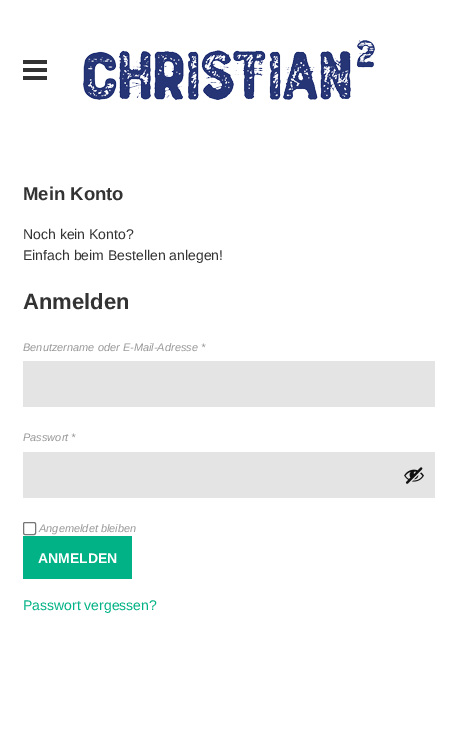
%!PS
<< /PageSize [458 729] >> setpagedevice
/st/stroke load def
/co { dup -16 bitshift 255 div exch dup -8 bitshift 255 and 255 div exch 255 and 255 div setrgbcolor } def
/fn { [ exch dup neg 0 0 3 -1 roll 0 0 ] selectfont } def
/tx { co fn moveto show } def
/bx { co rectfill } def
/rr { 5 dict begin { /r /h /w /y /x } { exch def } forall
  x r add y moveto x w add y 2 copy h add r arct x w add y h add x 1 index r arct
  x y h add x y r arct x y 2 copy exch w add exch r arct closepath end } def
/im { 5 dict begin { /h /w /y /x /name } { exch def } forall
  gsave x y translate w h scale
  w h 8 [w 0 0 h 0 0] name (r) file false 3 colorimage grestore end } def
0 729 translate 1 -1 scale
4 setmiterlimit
0 0 458 729 16#FFFFFF bx
23 60 24 4 16#333333 bx
23 68 24 4 16#333333 bx
23 76 24 4 16#333333 bx
(media/1.raw) 83 40 292 60 im
23 361 412 46 16#E4E4E4 bx
23 452 412 46 16#E4E4E4 bx
(media/2.raw) 404 467 20 17 im
16#767676 co
23.5 522.5 12 12 1.5 rr st
23 536 109 43 16#00B285 bx
(Mein Konto) 23 200 /LiberationSans-Bold 18.5 16#333333 tx
(Noch kein Konto?) 23 239 /LiberationSans-Regular 14 16#333333 tx
(Einfach beim Bestellen anlegen!) 23 260 /LiberationSans-Regular 14 16#333333 tx
(Anmelden) 23 309 /LiberationSans-Bold 22 16#333333 tx
(Benutzername oder E-Mail-Adresse *) 23 351 /LiberationSans-Italic 11 16#999999 tx
(Passwort *) 23 441 /LiberationSans-Italic 11 16#999999 tx
(Angemeldet bleiben) 39 532 /LiberationSans-Italic 11 16#999999 tx
(ANMELDEN) 38 563 /LiberationSans-Bold 14 16#FFFFFF tx
(Passwort vergessen?) 23 610 /LiberationSans-Regular 14 16#00B285 tx
showpage
